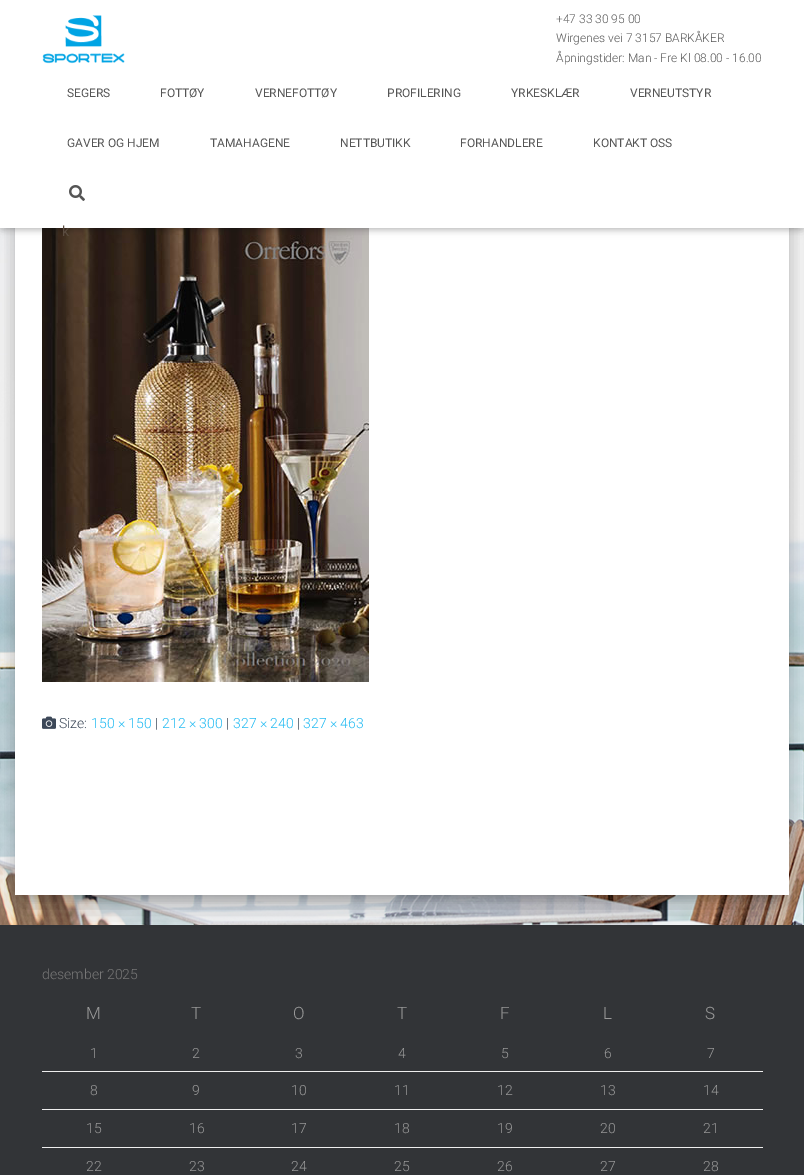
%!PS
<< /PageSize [804 1175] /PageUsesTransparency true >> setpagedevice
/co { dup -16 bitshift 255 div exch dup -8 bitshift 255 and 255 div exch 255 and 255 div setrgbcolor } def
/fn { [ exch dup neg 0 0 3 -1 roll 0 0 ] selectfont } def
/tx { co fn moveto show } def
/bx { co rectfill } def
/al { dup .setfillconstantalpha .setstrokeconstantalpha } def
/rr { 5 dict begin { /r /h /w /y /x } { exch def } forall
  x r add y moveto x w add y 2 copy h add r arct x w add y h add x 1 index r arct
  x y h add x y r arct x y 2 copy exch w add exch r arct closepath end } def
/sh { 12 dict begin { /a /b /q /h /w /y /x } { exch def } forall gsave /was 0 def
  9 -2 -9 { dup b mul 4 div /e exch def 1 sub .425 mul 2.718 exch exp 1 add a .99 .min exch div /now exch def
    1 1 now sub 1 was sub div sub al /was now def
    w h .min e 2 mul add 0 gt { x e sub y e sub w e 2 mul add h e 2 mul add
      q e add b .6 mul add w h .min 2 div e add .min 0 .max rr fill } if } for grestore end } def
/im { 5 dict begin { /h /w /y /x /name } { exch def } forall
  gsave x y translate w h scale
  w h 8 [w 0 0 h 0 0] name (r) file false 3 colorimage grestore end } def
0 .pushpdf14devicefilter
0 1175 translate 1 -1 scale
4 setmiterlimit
0 0 804 1175 16#FFFFFF bx
(media/1.raw) 0 228 804 697 im
16#000000 co
20 162 764 736 1 5 .2 sh
0 925 804 250 16#323437 bx
16#000000 co
10 150 784 756 11 15 .12 sh
13 163 778 750 8 12 .14 sh
15 228 774 667 16#FFFFFF bx
(media/4.raw) 42 228 327 454 im
16#000000 co
2 6 800 224 0 2.5 .1 sh
0 1 804 228 0 5 .12 sh
6 7 792 216 0 5 .42 sh
0 0 804 228 16#FFFFFF bx
(media/2.raw) 42 15 83 49 im
(media/3.raw) 69 185 16 16 im
(media/5.raw) 42 716 14 13 im
42 1071 721 1 16#EEEEEE bx
42 1109 721 1 16#EEEEEE bx
42 1147 721 1 16#EEEEEE bx
(+47 33 30 95 00) 556 23 /Roboto-Light 12 16#555555 tx
(Wirgenes vei 7 3157 BARKÅKER) 556 42 /Roboto-Light 12 16#555555 tx
(Åpningstider: Man - Fre Kl 08.00 - 16.00) 556 62 /Roboto-Light 12 16#555555 tx
(SEGERS) 67 97 /Roboto-Regular 12 16#555555 tx
(FOTTØY) 160 97 /Roboto-Regular 12 16#555555 tx
(VERNEFOTTØY) 255 97 /Roboto-Regular 12 16#555555 tx
(PROFILERING) 387 97 /Roboto-Regular 12 16#555555 tx
(YRKESKLÆR) 511 97 /Roboto-Regular 12 16#555555 tx
(VERNEUTSTYR) 630 97 /Roboto-Regular 12 16#555555 tx
(GAVER OG HJEM) 67 147 /Roboto-Regular 12 16#555555 tx
(TAMAHAGENE) 210 147 /Roboto-Regular 12 16#555555 tx
(NETTBUTIKK) 340 147 /Roboto-Regular 12 16#555555 tx
(FORHANDLERE) 460 147 /Roboto-Regular 12 16#555555 tx
(KONTAKT OSS) 593 147 /Roboto-Regular 12 16#555555 tx
(k) 62 236 /Roboto-Regular 14 16#5A4C40 tx
(Size:) 59 728 /Roboto-Light 14 16#3C4858 tx
(150 × 150) 91 728 /Roboto-Light 14 16#1FBAF2 tx
(|) 155 728 /Roboto-Light 14 16#3C4858 tx
(212 × 300) 162 728 /Roboto-Light 14 16#1FBAF2 tx
(|) 226 728 /Roboto-Light 14 16#3C4858 tx
(327 × 240) 233 728 /Roboto-Light 14 16#1FBAF2 tx
(|) 297 728 /Roboto-Light 14 16#3C4858 tx
(327 × 463) 303 728 /Roboto-Light 14 16#1FBAF2 tx
(desember 2025) 42 979 /Roboto-Light 14 16#777777 tx
(M) 86 1019 /Roboto-Light 17 16#999999 tx
(T) 191 1019 /Roboto-Light 17 16#999999 tx
(O) 293 1019 /Roboto-Light 17 16#999999 tx
(T) 397 1019 /Roboto-Light 17 16#999999 tx
(F) 500 1019 /Roboto-Light 17 16#999999 tx
(L) 603 1019 /Roboto-Light 17 16#999999 tx
(S) 705 1019 /Roboto-Light 17 16#999999 tx
(1) 90 1058 /Roboto-Light 14 16#999999 tx
(2) 192 1058 /Roboto-Light 14 16#999999 tx
(3) 295 1058 /Roboto-Light 14 16#999999 tx
(4) 398 1058 /Roboto-Light 14 16#999999 tx
(5) 501 1058 /Roboto-Light 14 16#999999 tx
(6) 604 1058 /Roboto-Light 14 16#999999 tx
(7) 707 1058 /Roboto-Light 14 16#999999 tx
(8) 90 1095 /Roboto-Light 14 16#999999 tx
(9) 192 1095 /Roboto-Light 14 16#999999 tx
(10) 291 1095 /Roboto-Light 14 16#999999 tx
(11) 394 1095 /Roboto-Light 14 16#999999 tx
(12) 497 1095 /Roboto-Light 14 16#999999 tx
(13) 600 1095 /Roboto-Light 14 16#999999 tx
(14) 703 1095 /Roboto-Light 14 16#999999 tx
(15) 86 1133 /Roboto-Light 14 16#999999 tx
(16) 189 1133 /Roboto-Light 14 16#999999 tx
(17) 291 1133 /Roboto-Light 14 16#999999 tx
(18) 394 1133 /Roboto-Light 14 16#999999 tx
(19) 497 1133 /Roboto-Light 14 16#999999 tx
(20) 600 1133 /Roboto-Light 14 16#999999 tx
(21) 703 1133 /Roboto-Light 14 16#999999 tx
(22) 86 1171 /Roboto-Light 14 16#999999 tx
(23) 189 1171 /Roboto-Light 14 16#999999 tx
(24) 291 1171 /Roboto-Light 14 16#999999 tx
(25) 394 1171 /Roboto-Light 14 16#999999 tx
(26) 497 1171 /Roboto-Light 14 16#999999 tx
(27) 600 1171 /Roboto-Light 14 16#999999 tx
(28) 703 1171 /Roboto-Light 14 16#999999 tx
.poppdf14devicefilter showpage
